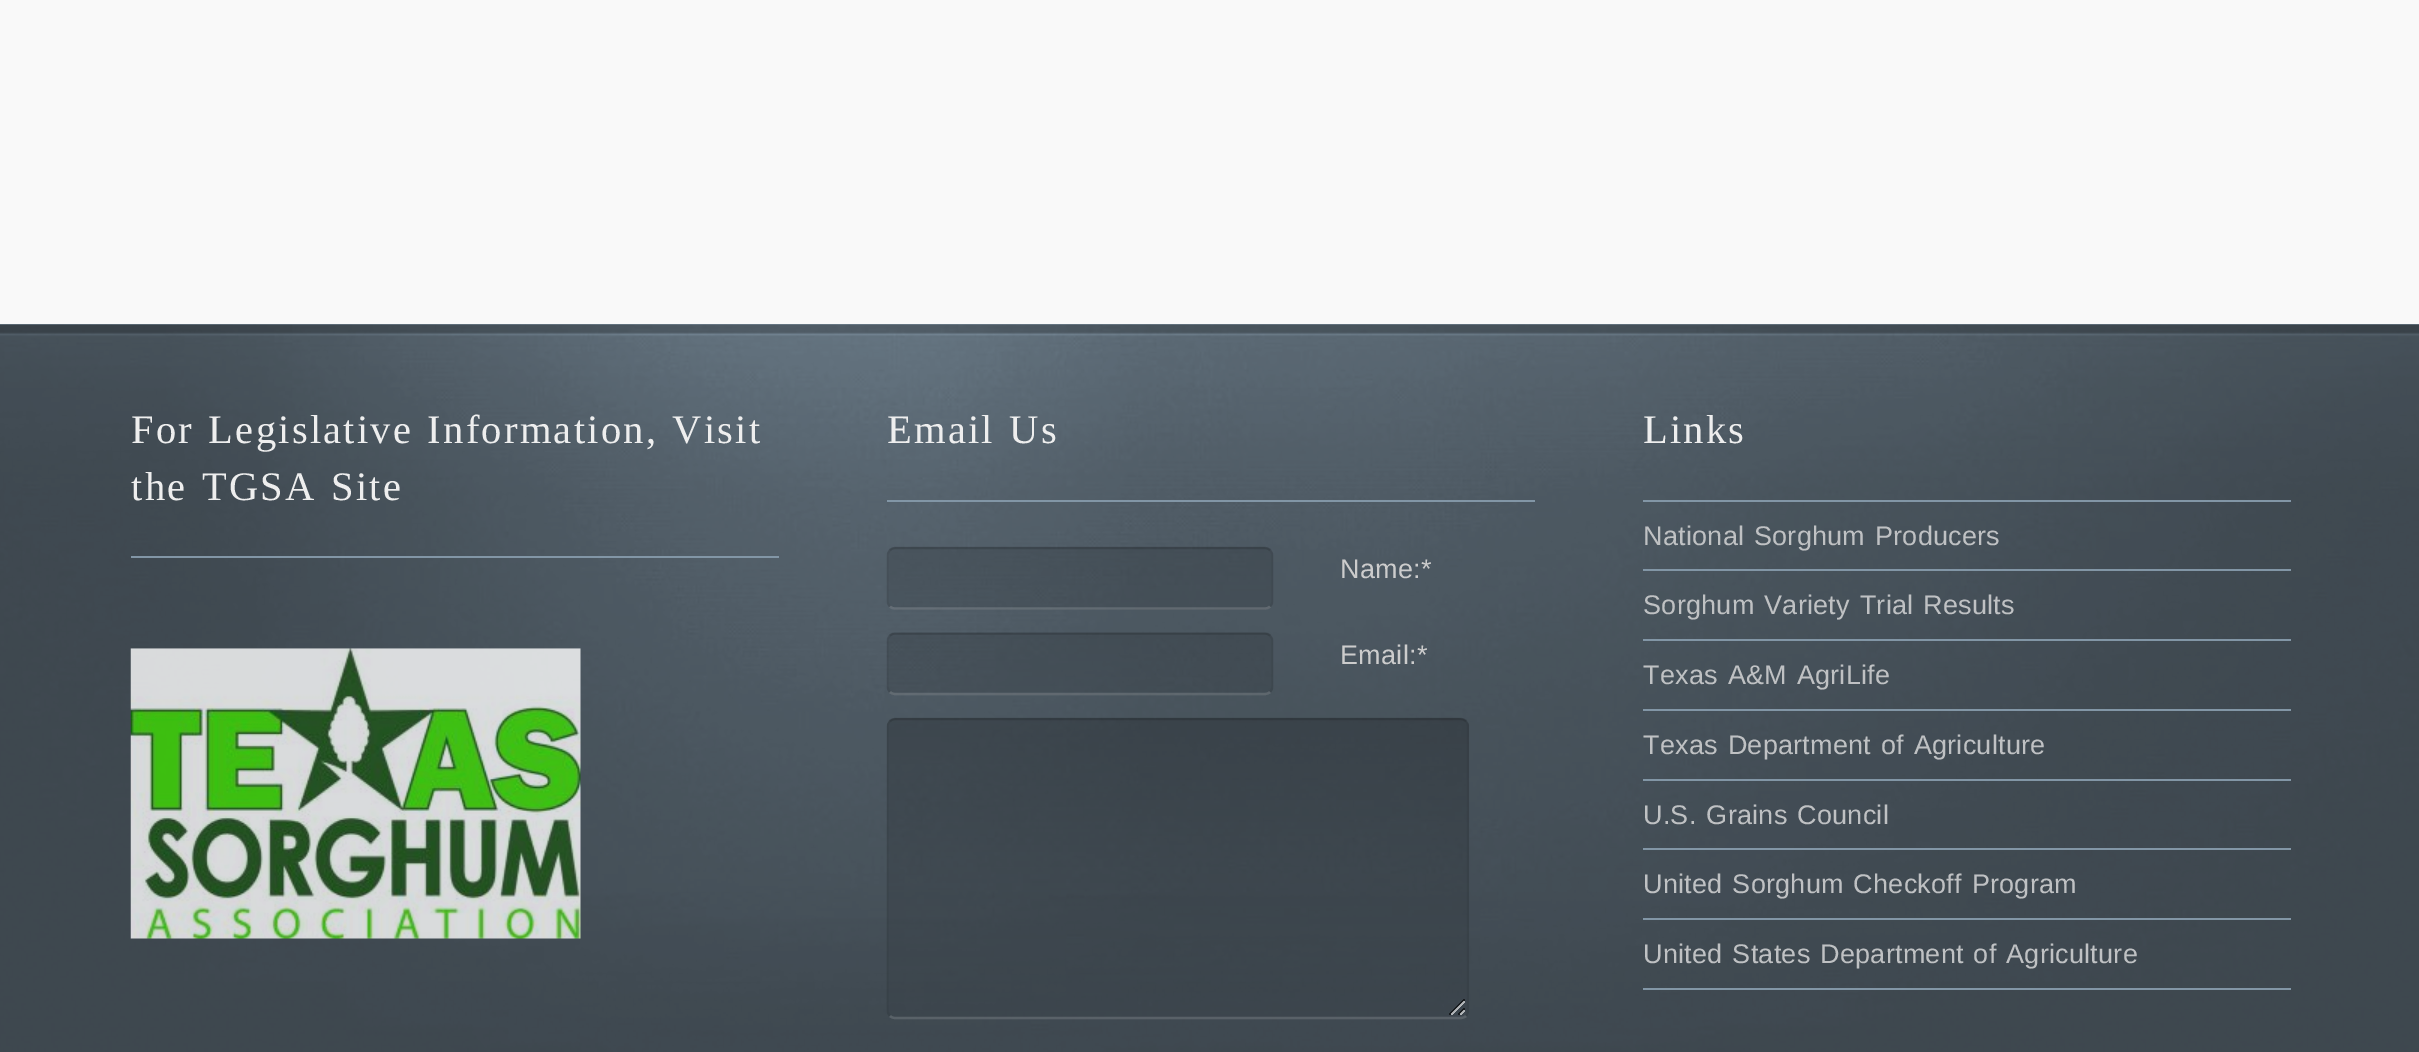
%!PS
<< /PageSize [2419 1052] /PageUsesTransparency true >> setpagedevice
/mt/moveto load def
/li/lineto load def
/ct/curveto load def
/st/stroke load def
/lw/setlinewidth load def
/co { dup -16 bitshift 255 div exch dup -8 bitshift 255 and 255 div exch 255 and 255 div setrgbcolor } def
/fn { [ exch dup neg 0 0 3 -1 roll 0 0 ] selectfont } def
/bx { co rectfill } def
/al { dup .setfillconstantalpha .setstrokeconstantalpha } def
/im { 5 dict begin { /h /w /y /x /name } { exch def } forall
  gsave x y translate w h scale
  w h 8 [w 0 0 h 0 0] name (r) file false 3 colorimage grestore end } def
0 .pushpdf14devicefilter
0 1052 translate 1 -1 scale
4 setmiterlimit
0 0 2419 1052 16#F9F9F9 bx
0 324 2419 728 16#8296A6 bx
(media/1.raw) 0 324 2419 728 im
131 556 648 2 16#8296A6 bx
(media/2.raw) 130 648 451 291 im
887 500 648 2 16#8296A6 bx
(media/3.raw) 887 547 386 63 im
0.15 al
16#000000 co
2.2 lw
890 550 mt 891.5 548.5 893.5 548 895.5 548 ct 1264.5 548 li 1266.5 548 1268.5 548.5 1270 550 ct st
0.06 al
1270 550 mt 1271.5 551.5 1272.5 553.5 1272.5 556 ct 1272.5 601 li 1272.5 603 1271.5 605 1270 606.5 ct st
0.15 al
16#FFFFFF co
1270 606.5 mt 1268.5 608 1266.5 608.5 1264.5 608.5 ct 895.5 608.5 li 893.5 608.5 891.5 608 890 606.5 ct st
0.06 al
16#000000 co
890 606.5 mt 888.5 605 887.5 603 887.5 601 ct 887.5 556 li 887.5 553.5 888.5 551.5 890 550 ct st
1 al
(media/4.raw) 887 633 386 62 im
0.15 al
890 635.5 mt 891.5 634 893.5 633.5 895.5 633.5 ct 1264.5 633.5 li 1266.5 633.5 1268.5 634 1270 635.5 ct st
0.06 al
1270 635.5 mt 1271.5 637 1272.5 639 1272.5 641 ct 1272.5 686 li 1272.5 688.5 1271.5 690.5 1270 692 ct st
0.15 al
16#FFFFFF co
1270 692 mt 1268.5 693.5 1266.5 694 1264.5 694 ct 895.5 694 li 893.5 694 891.5 693.5 890 692 ct st
0.06 al
16#000000 co
890 692 mt 888.5 690.5 887.5 688.5 887.5 686 ct 887.5 641 li 887.5 639 888.5 637 890 635.5 ct st
1 al
(media/5.raw) 887 718 582 301 im
0.15 al
890 721 mt 891.5 719.5 893.5 719 895.5 719 ct 1460 719 li 1462.5 719 1464.5 719.5 1466 721 ct st
0.06 al
1466 721 mt 1467.5 722.5 1468 724.5 1468 727 ct 1468 1010 li 1468 1012.5 1467.5 1014.5 1466 1016 ct st
0.15 al
16#FFFFFF co
1466 1016 mt 1464.5 1017.5 1462.5 1018 1460 1018 ct 895.5 1018 li 893.5 1018 891.5 1017.5 890 1016 ct st
0.06 al
16#000000 co
890 1016 mt 888.5 1014.5 887.5 1012.5 887.5 1010 ct 887.5 727 li 887.5 724.5 888.5 722.5 890 721 ct st
1 al
1643 500 648 2 16#8296A6 bx
1643 569 648 2 16#8296A6 bx
1643 639 648 2 16#8296A6 bx
1643 709 648 2 16#8296A6 bx
1643 779 648 2 16#8296A6 bx
1643 848 648 2 16#8296A6 bx
1643 918 648 2 16#8296A6 bx
1643 988 648 2 16#8296A6 bx
/LiberationSerif-Regular 40.5 fn
16#EEEEEE co
131 443 mt 2 0 32 2.25 0 (For Legislative Information, Visit) awidthshow
131 500 mt 2 0 32 2.25 0 (the TGSA Site) awidthshow
887 443 mt 2 0 32 2.25 0 (Email Us) awidthshow
/LiberationSans-Regular 27 fn
16#CCCCCC co
1340 578 mt .25 0 (Name:*) ashow
1340 664 mt .25 0 (Email:*) ashow
/LiberationSerif-Regular 40.5 fn
16#EEEEEE co
1643 443 mt 2.25 0 (Links) ashow
/LiberationSans-Regular 27 fn
16#BFC1C3 co
1643 545 mt 2 0 32 .25 0 (National Sorghum Producers) awidthshow
1643 614 mt 2 0 32 .25 0 (Sorghum Variety Trial Results) awidthshow
1643 684 mt 2 0 32 .25 0 (Texas A&M AgriLife) awidthshow
1643 754 mt 2 0 32 .25 0 (Texas Department of Agriculture) awidthshow
1643 824 mt 2 0 32 .25 0 (U.S. Grains Council) awidthshow
1643 893 mt 2 0 32 .25 0 (United Sorghum Checkoff Program) awidthshow
1643 963 mt 2 0 32 .25 0 (United States Department of Agriculture) awidthshow
.poppdf14devicefilter showpage
